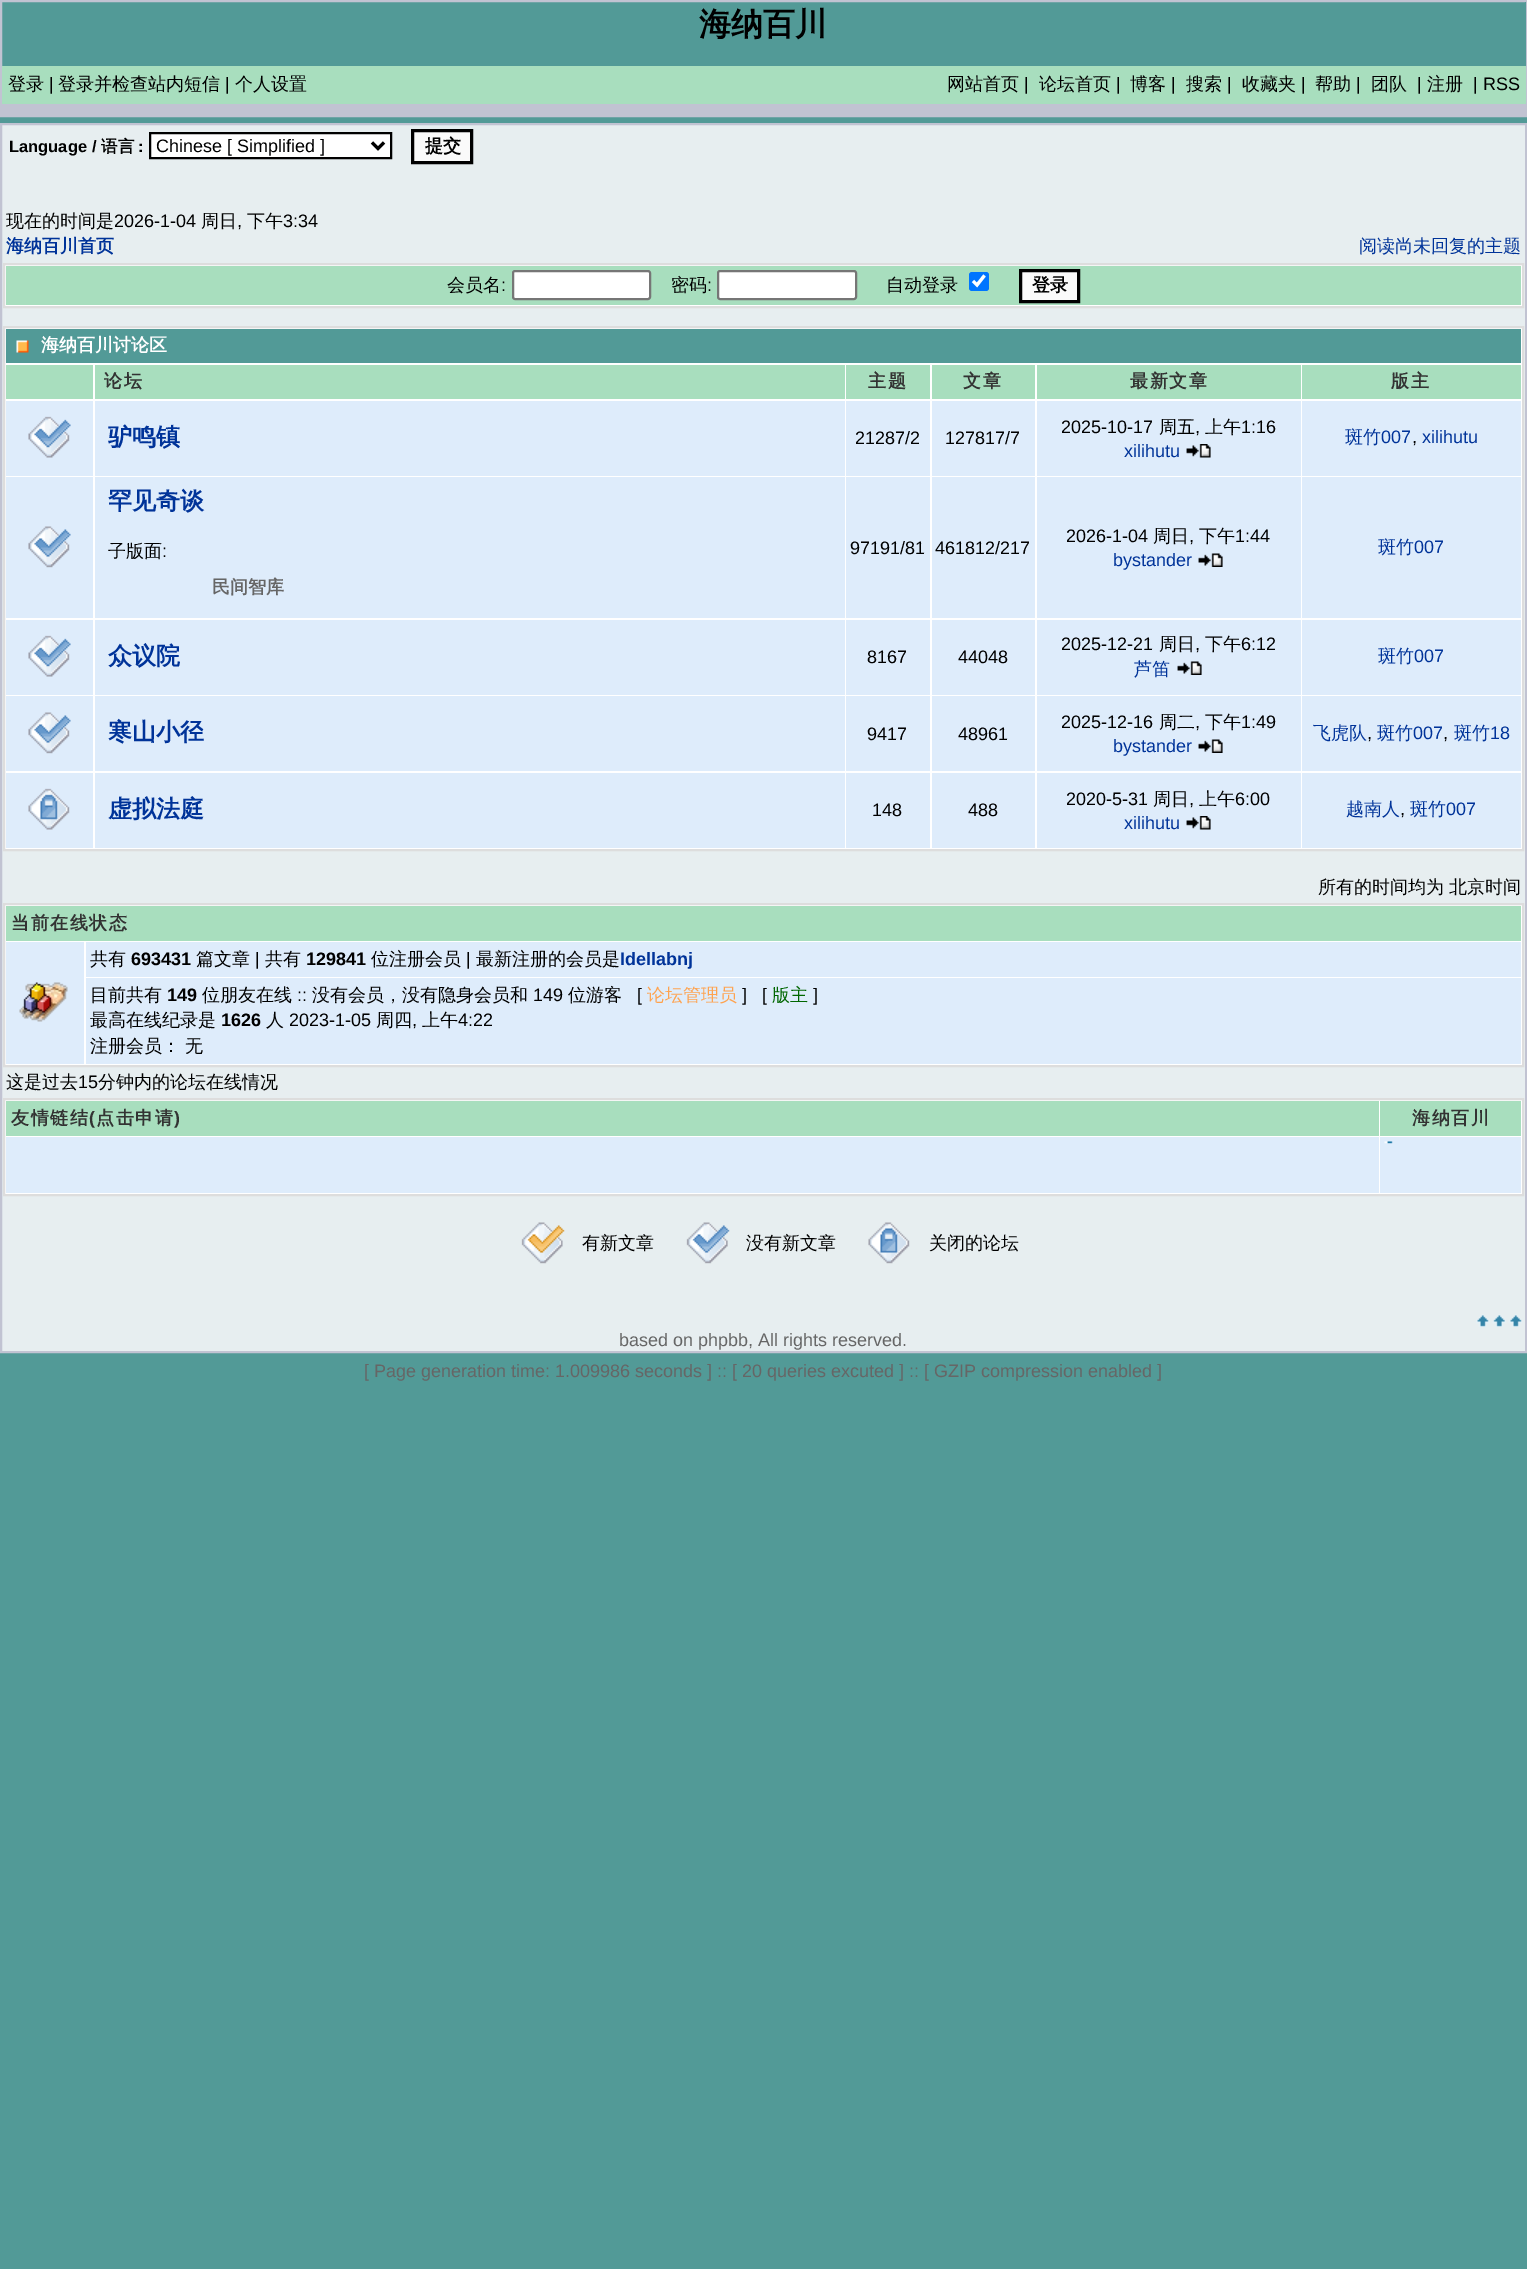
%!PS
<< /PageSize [1527 2269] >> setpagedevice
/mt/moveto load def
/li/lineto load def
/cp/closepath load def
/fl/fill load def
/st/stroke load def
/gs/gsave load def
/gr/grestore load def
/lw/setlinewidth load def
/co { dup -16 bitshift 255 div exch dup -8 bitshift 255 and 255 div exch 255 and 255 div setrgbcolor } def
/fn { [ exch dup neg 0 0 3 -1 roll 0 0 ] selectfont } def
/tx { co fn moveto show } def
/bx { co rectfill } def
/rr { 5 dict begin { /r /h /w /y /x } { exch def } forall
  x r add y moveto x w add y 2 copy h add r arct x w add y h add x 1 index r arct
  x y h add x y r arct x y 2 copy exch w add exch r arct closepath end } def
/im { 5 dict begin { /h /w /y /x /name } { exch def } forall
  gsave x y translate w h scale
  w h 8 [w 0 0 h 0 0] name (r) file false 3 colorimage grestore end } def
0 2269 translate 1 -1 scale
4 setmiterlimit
0 0 1527 2269 16#529A97 bx
16#C1C3D2 co
2 lw
1 1 1525 115 rectstroke
1525 2 1 64 16#529A97 bx
2 66 1524 38 16#A8DEBE bx
2 104 1523 11 16#C1C3D2 bx
16#E7EEF0 co
1 124 mt 1526 124 li 1526 1352 li 1 1352 li cp gs fl gr
16#C1C3D2 co
st
16#FFFFFF co
150 133 mt 391 133 li 391 158 li 150 158 li cp gs fl gr
16#000000 co
st
3 lw
372 142.5 mt 378 148.5 li 384 142.5 li st
16#FAFAFA co
412.5 130.5 mt 471.5 130.5 li 471.5 162.5 li 412.5 162.5 li cp gs fl gr
16#000000 co
st
16#FFFFFF co
4 264 mt 1523 264 li 1523 307 li 4 307 li cp gs fl gr
16#DDDDDD co
2 lw
st
6 266 1515 39 16#A8DEBE bx
16#FFFFFF co
513 271 137 28 2 rr gs fl gr
16#767676 co
st
16#FFFFFF co
718 271 138 28 2 rr gs fl gr
16#767676 co
st
16#0075FF co
969 272 20 19 3 rr fl
16#FFFFFF co
3.1 lw
973 281 mt 977 285 li 984.5 275.5 li st
16#FAFAFA co
1020.5 270.5 mt 1078.5 270.5 li 1078.5 301.5 li 1020.5 301.5 li cp gs fl gr
16#000000 co
3 lw
st
16#FFFFFF co
4 327 mt 1523 327 li 1523 850 li 4 850 li cp gs fl gr
16#DDDDDD co
2 lw
st
6 329 1515 34 16#529A97 bx
(media/1.raw) 16 340 13 13 im
6 365 87 34 16#A8DEBE bx
95 365 750 34 16#A8DEBE bx
846 365 84 34 16#A8DEBE bx
932 365 103 34 16#A8DEBE bx
1037 365 264 34 16#A8DEBE bx
1302 365 219 34 16#A8DEBE bx
6 401 87 75 16#DEECFB bx
(media/2.raw) 28 416 43 42 im
95 401 750 75 16#DEECFB bx
846 401 84 75 16#DEECFB bx
932 401 103 75 16#DEECFB bx
1037 401 264 75 16#DEECFB bx
(media/3.raw) 1186 444 25 14 im
1302 401 219 75 16#DEECFB bx
6 477 87 141 16#DEECFB bx
(media/4.raw) 28 526 43 42 im
95 477 750 141 16#DEECFB bx
846 477 84 141 16#DEECFB bx
932 477 103 141 16#DEECFB bx
1037 477 264 141 16#DEECFB bx
(media/5.raw) 1198 553 25 14 im
1302 477 219 141 16#DEECFB bx
6 620 87 75 16#DEECFB bx
(media/2.raw) 28 635 43 42 im
95 620 750 75 16#DEECFB bx
846 620 84 75 16#DEECFB bx
932 620 103 75 16#DEECFB bx
1037 620 264 75 16#DEECFB bx
(media/5.raw) 1177 661 25 14 im
1302 620 219 75 16#DEECFB bx
6 696 87 75 16#DEECFB bx
(media/4.raw) 28 712 43 42 im
95 696 750 75 16#DEECFB bx
846 696 84 75 16#DEECFB bx
932 696 103 75 16#DEECFB bx
1037 696 264 75 16#DEECFB bx
(media/5.raw) 1198 739 25 14 im
1302 696 219 75 16#DEECFB bx
6 773 87 75 16#DEECFB bx
(media/6.raw) 28 788 42 42 im
95 773 750 75 16#DEECFB bx
846 773 84 75 16#DEECFB bx
932 773 103 75 16#DEECFB bx
1037 773 264 75 16#DEECFB bx
(media/3.raw) 1186 816 25 14 im
1302 773 219 75 16#DEECFB bx
16#FFFFFF co
4 904 mt 1523 904 li 1523 1066 li 4 1066 li cp gs fl gr
16#DDDDDD co
st
6 906 1515 35 16#A8DEBE bx
6 942 78 122 16#DEECFB bx
(media/7.raw) 19 982 49 40 im
86 942 1435 35 16#DEECFB bx
86 978 1435 86 16#DEECFB bx
16#FFFFFF co
4 1099 mt 1523 1099 li 1523 1195 li 4 1195 li cp gs fl gr
16#DDDDDD co
st
6 1101 1373 35 16#A8DEBE bx
1380 1101 141 35 16#A8DEBE bx
6 1137 1373 56 16#DEECFB bx
1380 1137 141 56 16#DEECFB bx
(media/8.raw) 1384 1141 9 3 im
(media/9.raw) 521 1222 44 42 im
(media/10.raw) 686 1222 44 42 im
(media/11.raw) 868 1222 42 42 im
(media/12.raw) 1476 1314 46 13 im
(海纳百川) 699 35 /WenQuanYiZenHei-Bold 32 16#000000 tx
(登录) 8 90 /WenQuanYiZenHei-Medium 18 16#000000 tx
(|) 49 90 /LiberationSans-Regular 18 16#000000 tx
(登录并检查站内短信) 58 90 /WenQuanYiZenHei-Medium 18 16#000000 tx
(|) 225 90 /LiberationSans-Regular 18 16#000000 tx
(个人设置) 235 90 /WenQuanYiZenHei-Medium 18 16#000000 tx
(网站首页) 947 90 /WenQuanYiZenHei-Medium 18 16#000000 tx
(|) 1024 90 /LiberationSans-Regular 18 16#000000 tx
(论坛首页) 1039 90 /WenQuanYiZenHei-Medium 18 16#000000 tx
(|) 1116 90 /LiberationSans-Regular 18 16#000000 tx
(博客) 1130 90 /WenQuanYiZenHei-Medium 18 16#000000 tx
(|) 1171 90 /LiberationSans-Regular 18 16#000000 tx
(搜索) 1186 90 /WenQuanYiZenHei-Medium 18 16#000000 tx
(|) 1227 90 /LiberationSans-Regular 18 16#000000 tx
(收藏夹) 1242 90 /WenQuanYiZenHei-Medium 18 16#000000 tx
(|) 1301 90 /LiberationSans-Regular 18 16#000000 tx
(帮助) 1315 90 /WenQuanYiZenHei-Medium 18 16#000000 tx
(|) 1356 90 /LiberationSans-Regular 18 16#000000 tx
(团队) 1371 90 /WenQuanYiZenHei-Medium 18 16#000000 tx
(|) 1417 90 /LiberationSans-Regular 18 16#000000 tx
(注册) 1427 90 /WenQuanYiZenHei-Medium 18 16#000000 tx
(| RSS) 1473 90 /LiberationSans-Regular 18 16#000000 tx
(Language /) 9 152 /LiberationSans-Bold 16.5 16#000000 tx
(语言) 101 152 /WenQuanYiZenHei-Bold 16.5 16#000000 tx
(:) 138 152 /LiberationSans-Bold 16.5 16#000000 tx
(Chinese [ Simplified ]) 156 152 /LiberationSans-Regular 18 16#000000 tx
(提交) 425 152 /WenQuanYiZenHei-Bold 18 16#000000 tx
(现在的时间是) 6 227 /WenQuanYiZenHei-Medium 18 16#000000 tx
(2026-1-04) 114 227 /LiberationSans-Regular 18 16#000000 tx
(周日) 201 227 /WenQuanYiZenHei-Medium 18 16#000000 tx
(,) 237 227 /LiberationSans-Regular 18 16#000000 tx
(下午) 247 227 /WenQuanYiZenHei-Medium 18 16#000000 tx
(3:34) 283 227 /LiberationSans-Regular 18 16#000000 tx
(海纳百川首页) 6 252 /WenQuanYiZenHei-Bold 18 16#003399 tx
(阅读尚未回复的主题) 1359 252 /WenQuanYiZenHei-Medium 18 16#003399 tx
(会员名) 447 291 /WenQuanYiZenHei-Medium 18 16#000000 tx
(:) 501 291 /LiberationSans-Regular 18 16#000000 tx
(密码) 671 291 /WenQuanYiZenHei-Medium 18 16#000000 tx
(:) 707 291 /LiberationSans-Regular 18 16#000000 tx
(自动登录) 886 291 /WenQuanYiZenHei-Medium 18 16#000000 tx
(登录) 1032 291 /WenQuanYiZenHei-Bold 18 16#000000 tx
(海纳百川讨论区) 41 351 /WenQuanYiZenHei-Bold 18 16#FFFFFF tx
16#333333 co
104 387 mt 1.5 0 (论坛) ashow
868 387 mt 1.5 0 (主题) ashow
963 387 mt 1.5 0 (文章) ashow
1130 387 mt 1.5 0 (最新文章) ashow
1391 387 mt 1.5 0 (版主) ashow
(驴鸣镇) 108 445 /WenQuanYiZenHei-Bold 24 16#003399 tx
(21287/2) 855 444 /LiberationSans-Regular 18 16#000000 tx
(127817/7) 945 444 /LiberationSans-Regular 18 16#000000 tx
(2025-10-17) 1061 433 /LiberationSans-Regular 18 16#000000 tx
(周五) 1159 433 /WenQuanYiZenHei-Medium 18 16#000000 tx
(,) 1195 433 /LiberationSans-Regular 18 16#000000 tx
(上午) 1205 433 /WenQuanYiZenHei-Medium 18 16#000000 tx
(1:16) 1241 433 /LiberationSans-Regular 18 16#000000 tx
(xilihutu) 1124 457 /LiberationSans-Regular 18 16#003399 tx
(斑竹) 1345 443 /WenQuanYiZenHei-Medium 18 16#003399 tx
(007) 1381 443 /LiberationSans-Regular 18 16#003399 tx
(,) 1412 443 /LiberationSans-Regular 18 16#000000 tx
(xilihutu) 1422 443 /LiberationSans-Regular 18 16#003399 tx
(罕见奇谈) 108 509 /WenQuanYiZenHei-Bold 24 16#003399 tx
(子版面) 108 557 /WenQuanYiZenHei-Medium 18 16#000000 tx
(:) 162 557 /LiberationSans-Regular 18 16#000000 tx
(民间智库) 212 593 /WenQuanYiZenHei-Bold 18 16#666666 tx
(97191/81) 850 554 /LiberationSans-Regular 18 16#000000 tx
(461812/217) 935 554 /LiberationSans-Regular 18 16#000000 tx
(2026-1-04) 1066 542 /LiberationSans-Regular 18 16#000000 tx
(周日) 1153 542 /WenQuanYiZenHei-Medium 18 16#000000 tx
(下午) 1199 542 /WenQuanYiZenHei-Medium 18 16#000000 tx
(1:44) 1235 542 /LiberationSans-Regular 18 16#000000 tx
(,) 1189 542 /LiberationSans-Regular 18 16#000000 tx
(bystander) 1113 566 /LiberationSans-Regular 18 16#003399 tx
(斑竹) 1378 553 /WenQuanYiZenHei-Medium 18 16#003399 tx
(007) 1414 553 /LiberationSans-Regular 18 16#003399 tx
(众议院) 108 664 /WenQuanYiZenHei-Bold 24 16#003399 tx
(8167) 867 663 /LiberationSans-Regular 18 16#000000 tx
(44048) 958 663 /LiberationSans-Regular 18 16#000000 tx
(2025-12-21) 1061 650 /LiberationSans-Regular 18 16#000000 tx
(周日) 1159 650 /WenQuanYiZenHei-Medium 18 16#000000 tx
(,) 1195 650 /LiberationSans-Regular 18 16#000000 tx
(下午) 1205 650 /WenQuanYiZenHei-Medium 18 16#000000 tx
(6:12) 1241 650 /LiberationSans-Regular 18 16#000000 tx
(芦笛) 1134 675 /WenQuanYiZenHei-Medium 18 16#003399 tx
(斑竹) 1378 662 /WenQuanYiZenHei-Medium 18 16#003399 tx
(007) 1414 662 /LiberationSans-Regular 18 16#003399 tx
(寒山小径) 108 740 /WenQuanYiZenHei-Bold 24 16#003399 tx
(9417) 867 740 /LiberationSans-Regular 18 16#000000 tx
(48961) 958 740 /LiberationSans-Regular 18 16#000000 tx
(2025-12-16) 1061 728 /LiberationSans-Regular 18 16#000000 tx
(周二) 1159 728 /WenQuanYiZenHei-Medium 18 16#000000 tx
(,) 1195 728 /LiberationSans-Regular 18 16#000000 tx
(下午) 1205 728 /WenQuanYiZenHei-Medium 18 16#000000 tx
(1:49) 1241 728 /LiberationSans-Regular 18 16#000000 tx
(bystander) 1113 752 /LiberationSans-Regular 18 16#003399 tx
(飞虎队) 1313 739 /WenQuanYiZenHei-Medium 18 16#003399 tx
(,) 1367 739 /LiberationSans-Regular 18 16#000000 tx
(斑竹) 1377 739 /WenQuanYiZenHei-Medium 18 16#003399 tx
(007) 1413 739 /LiberationSans-Regular 18 16#003399 tx
(,) 1443 739 /LiberationSans-Regular 18 16#000000 tx
(斑竹) 1454 739 /WenQuanYiZenHei-Medium 18 16#003399 tx
(18) 1490 739 /LiberationSans-Regular 18 16#003399 tx
(虚拟法庭) 108 817 /WenQuanYiZenHei-Bold 24 16#003399 tx
(148) 872 816 /LiberationSans-Regular 18 16#000000 tx
(488) 968 816 /LiberationSans-Regular 18 16#000000 tx
(2020-5-31) 1066 805 /LiberationSans-Regular 18 16#000000 tx
(周日) 1153 805 /WenQuanYiZenHei-Medium 18 16#000000 tx
(,) 1189 805 /LiberationSans-Regular 18 16#000000 tx
(上午) 1199 805 /WenQuanYiZenHei-Medium 18 16#000000 tx
(6:00) 1235 805 /LiberationSans-Regular 18 16#000000 tx
(xilihutu) 1124 829 /LiberationSans-Regular 18 16#003399 tx
(越南人) 1346 815 /WenQuanYiZenHei-Medium 18 16#003399 tx
(,) 1400 815 /LiberationSans-Regular 18 16#000000 tx
(斑竹) 1410 815 /WenQuanYiZenHei-Medium 18 16#003399 tx
(007) 1446 815 /LiberationSans-Regular 18 16#003399 tx
(所有的时间均为 北京时间) 1318 893 /WenQuanYiZenHei-Medium 18 16#000000 tx
/WenQuanYiZenHei-Bold 18 fn
16#333333 co
11 929 mt 1.5 0 (当前在线状态) ashow
(共有) 90 965 /WenQuanYiZenHei-Medium 18 16#000000 tx
(693431) 131 965 /LiberationSans-Bold 18 16#000000 tx
(篇文章) 196 965 /WenQuanYiZenHei-Medium 18 16#000000 tx
(|) 255 965 /LiberationSans-Regular 18 16#000000 tx
(共有) 265 965 /WenQuanYiZenHei-Medium 18 16#000000 tx
(129841) 306 965 /LiberationSans-Bold 18 16#000000 tx
(位注册会员) 371 965 /WenQuanYiZenHei-Medium 18 16#000000 tx
(|) 466 965 /LiberationSans-Regular 18 16#000000 tx
(最新注册的会员是) 476 965 /WenQuanYiZenHei-Medium 18 16#000000 tx
(Idellabnj) 620 965 /LiberationSans-Bold 18 16#003399 tx
(目前共有) 90 1001 /WenQuanYiZenHei-Medium 18 16#000000 tx
(149) 167 1001 /LiberationSans-Bold 18 16#000000 tx
(位朋友在线) 202 1001 /WenQuanYiZenHei-Medium 18 16#000000 tx
(::) 297 1001 /LiberationSans-Regular 18 16#000000 tx
(没有会员，没有隐身会员和) 312 1001 /WenQuanYiZenHei-Medium 18 16#000000 tx
(149) 533 1001 /LiberationSans-Regular 18 16#000000 tx
(位游客) 568 1001 /WenQuanYiZenHei-Medium 18 16#000000 tx
([) 637 1001 /LiberationSans-Regular 18 16#000000 tx
(论坛管理员) 647 1001 /WenQuanYiZenHei-Medium 18 16#FFA34F tx
(]   [) 742 1001 /LiberationSans-Regular 18 16#000000 tx
(版主) 772 1001 /WenQuanYiZenHei-Medium 18 16#006600 tx
(]) 813 1001 /LiberationSans-Regular 18 16#000000 tx
(最高在线纪录是) 90 1026 /WenQuanYiZenHei-Medium 18 16#000000 tx
(1626) 221 1026 /LiberationSans-Bold 18 16#000000 tx
(人) 266 1026 /WenQuanYiZenHei-Medium 18 16#000000 tx
(2023-1-05) 289 1026 /LiberationSans-Regular 18 16#000000 tx
(周四) 376 1026 /WenQuanYiZenHei-Medium 18 16#000000 tx
(上午) 422 1026 /WenQuanYiZenHei-Medium 18 16#000000 tx
(4:22) 458 1026 /LiberationSans-Regular 18 16#000000 tx
(,) 412 1026 /LiberationSans-Regular 18 16#000000 tx
(注册会员： 无) 90 1052 /WenQuanYiZenHei-Medium 18 16#000000 tx
(这是过去) 6 1088 /WenQuanYiZenHei-Medium 18 16#000000 tx
(15) 78 1088 /LiberationSans-Regular 18 16#000000 tx
(分钟内的论坛在线情况) 98 1088 /WenQuanYiZenHei-Medium 18 16#000000 tx
/WenQuanYiZenHei-Bold 18 fn
16#333333 co
11 1124 mt 1.5 0 (友情链结) ashow
/LiberationSans-Bold 18 fn
89 1124 mt 1.5 0 (\() ashow
/WenQuanYiZenHei-Bold 18 fn
96 1124 mt 1.5 0 (点击申请) ashow
/LiberationSans-Bold 18 fn
174 1124 mt 1.5 0 (\)) ashow
/WenQuanYiZenHei-Bold 18 fn
1412 1124 mt 1.5 0 (海纳百川) ashow
(有新文章) 582 1249 /WenQuanYiZenHei-Medium 18 16#000000 tx
(没有新文章) 746 1249 /WenQuanYiZenHei-Medium 18 16#000000 tx
(关闭的论坛) 929 1249 /WenQuanYiZenHei-Medium 18 16#000000 tx
(based on phpbb, All rights reserved.) 619 1346 /LiberationSans-Regular 18 16#666666 tx
([ Page generation time: 1.009986 seconds ] :: [ 20 queries excuted ] :: [ GZIP compression enabled ]) 364 1377 /LiberationSans-Regular 18 16#666666 tx
showpage
